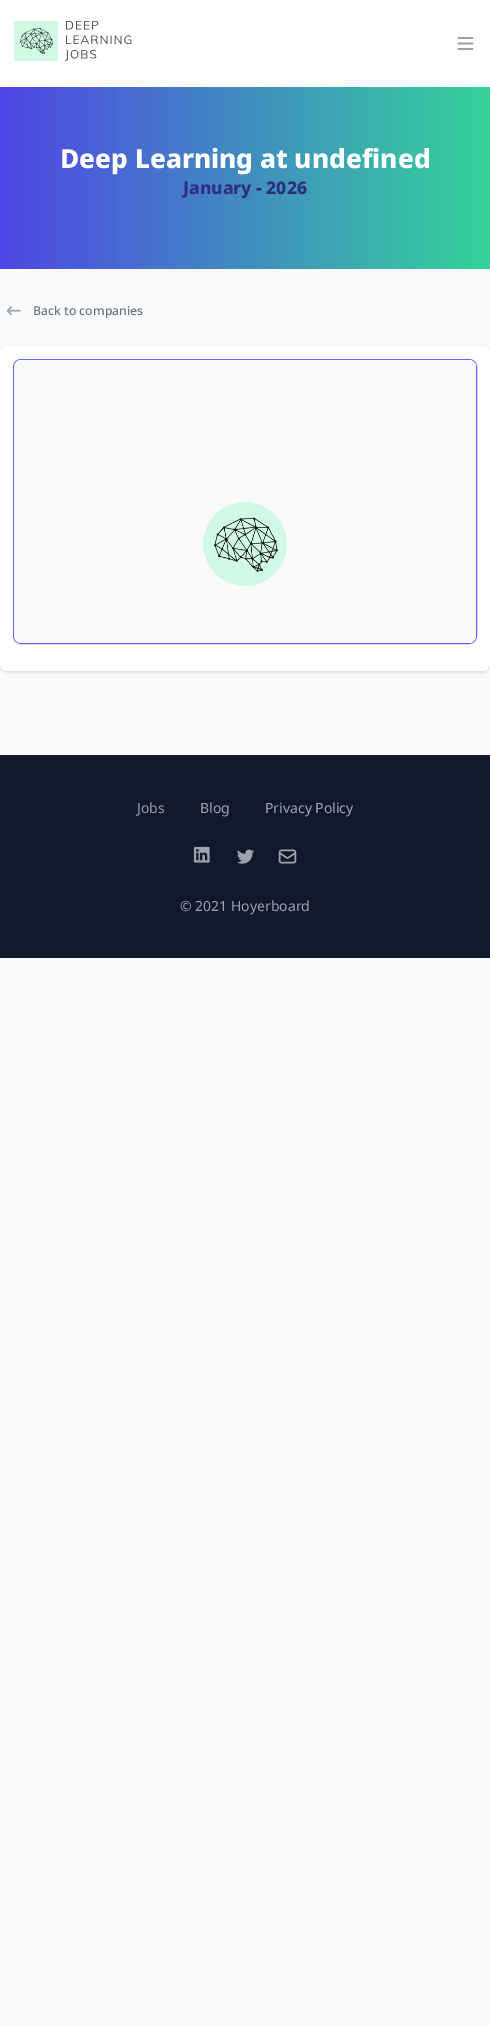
%!PS
<< /PageSize [490 2026] /PageUsesTransparency true >> setpagedevice
/mt/moveto load def
/li/lineto load def
/cp/closepath load def
/fl/fill load def
/st/stroke load def
/gs/gsave load def
/gr/grestore load def
/lw/setlinewidth load def
/co { dup -16 bitshift 255 div exch dup -8 bitshift 255 and 255 div exch 255 and 255 div setrgbcolor } def
/fn { [ exch dup neg 0 0 3 -1 roll 0 0 ] selectfont } def
/tx { co fn moveto show } def
/bx { co rectfill } def
/al { dup .setfillconstantalpha .setstrokeconstantalpha } def
/rr { 5 dict begin { /r /h /w /y /x } { exch def } forall
  x r add y moveto x w add y 2 copy h add r arct x w add y h add x 1 index r arct
  x y h add x y r arct x y 2 copy exch w add exch r arct closepath end } def
/sh { 12 dict begin { /a /b /q /h /w /y /x } { exch def } forall gsave /was 0 def
  9 -2 -9 { dup b mul 4 div /e exch def 1 sub .425 mul 2.718 exch exp 1 add a .99 .min exch div /now exch def
    1 1 now sub 1 was sub div sub al /was now def
    w h .min e 2 mul add 0 gt { x e sub y e sub w e 2 mul add h e 2 mul add
      q e add b .6 mul add w h .min 2 div e add .min 0 .max rr fill } if } for grestore end } def
/im { 5 dict begin { /h /w /y /x /name } { exch def } forall
  gsave x y translate w h scale
  w h 8 [w 0 0 h 0 0] name (r) file false 3 colorimage grestore end } def
0 .pushpdf14devicefilter
0 2026 translate 1 -1 scale
4 setmiterlimit
0 0 490 2026 16#F9FAFB bx
0 0 490 87 16#FFFFFF bx
(media/1.raw) 14 21 118 40 im
16#9CA3AF co
1.8 lw
1 setlinecap
1 setlinejoin
458.5 38 mt 472.5 38 li 458.5 43.5 mt 472.5 43.5 li 458.5 49 mt 472.5 49 li st
gs 0 87 mt 490 87 li 490 269 li 0 269 li cp clip newpath
<< /ShadingType 2 /ColorSpace /DeviceRGB /Coords [0 178 490 178] /Extend [true true] /Function << /FunctionType 2 /Domain [0 1] /C0 [.31 .275 .898] /C1 [.204 .827 .6] /N 1 >> >> shfill gr
(media/2.raw) 6 306 15 9 im
16#000000 co
0 347 490 325 7 1 .06 sh
0 347 490 325 7 1.5 .1 sh
16#FFFFFF co
0 346 490 325 7 rr fl
16#6366F1 co
1 lw
0 setlinecap
0 setlinejoin
13.5 359.5 463 284 7.5 rr st
16#F9FAFB co
14 360 462 283 7 rr fl
(media/3.raw) 203 502 84 84 im
0 755 490 203 16#111827 bx
(media/4.raw) 193 846 17 17 im
(media/5.raw) 237 849 17 15 im
(media/6.raw) 278 849 19 15 im
(Deep Learning at undefined) 60 168 /NotoSans-ExtraBold 26.25 16#FFFFFF tx
(January - 2026) 183 194 /NotoSans-ExtraBold 17.5 16#312E81 tx
(Back to companies) 33 315 /NotoSans-Medium 12.25 16#6B7280 tx
(Jobs) 137 813 /NotoSans-Regular 14 16#9CA3AF tx
(Blog) 200 813 /NotoSans-Regular 14 16#9CA3AF tx
(Privacy Policy) 265 813 /NotoSans-Regular 14 16#9CA3AF tx
(© 2021 Hoyerboard) 180 911 /NotoSans-Regular 14 16#9CA3AF tx
.poppdf14devicefilter showpage
